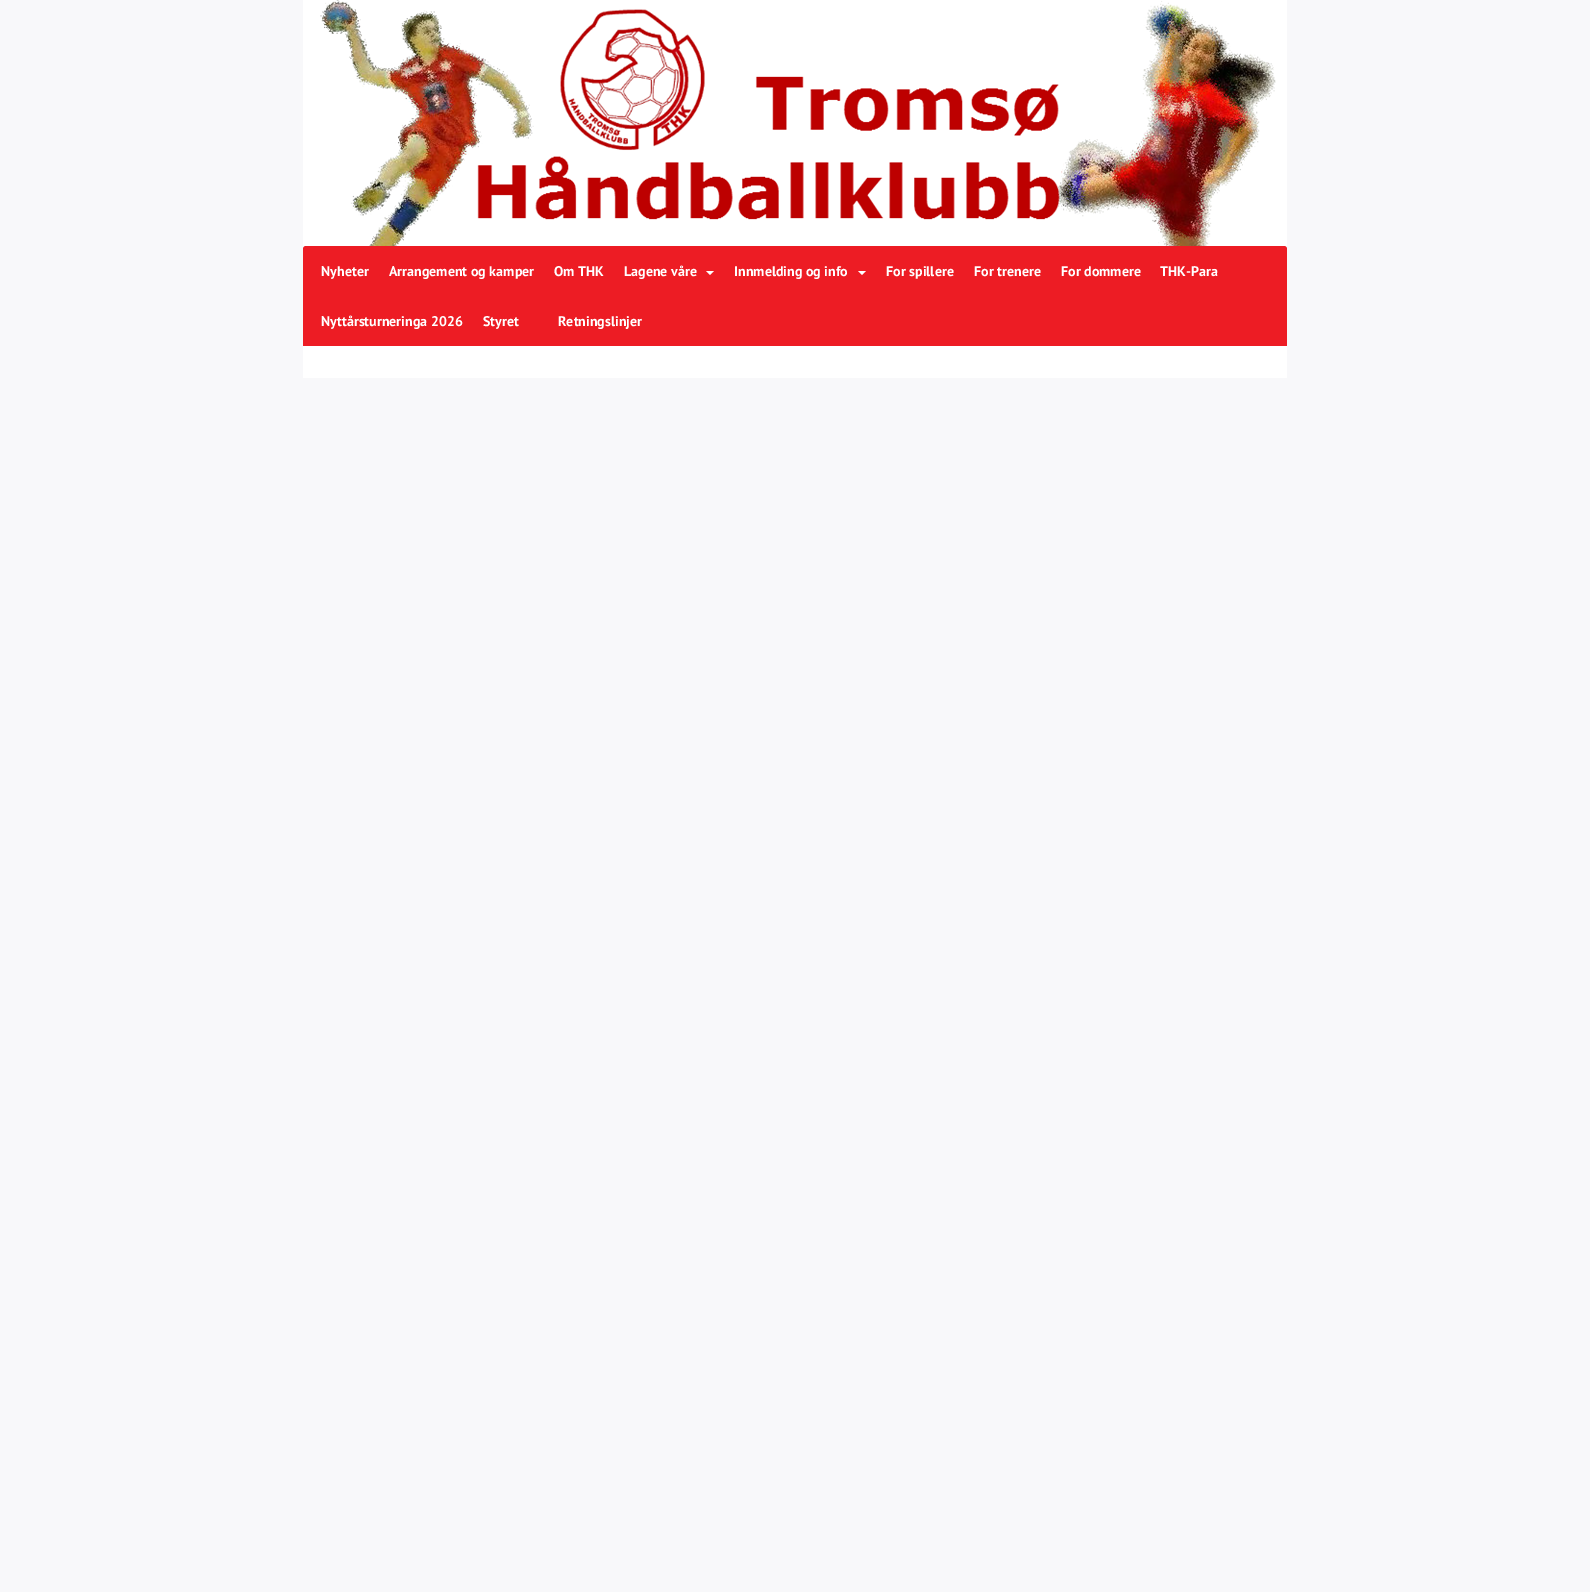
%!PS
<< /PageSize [1590 1592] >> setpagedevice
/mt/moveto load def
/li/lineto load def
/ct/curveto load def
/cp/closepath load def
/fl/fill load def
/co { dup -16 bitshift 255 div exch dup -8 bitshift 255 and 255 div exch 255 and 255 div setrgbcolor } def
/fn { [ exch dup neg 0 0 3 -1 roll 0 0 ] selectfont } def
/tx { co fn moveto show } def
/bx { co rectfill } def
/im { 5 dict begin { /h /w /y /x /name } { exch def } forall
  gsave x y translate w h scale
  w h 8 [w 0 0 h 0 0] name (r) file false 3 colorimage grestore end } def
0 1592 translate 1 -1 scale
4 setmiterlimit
0 0 1590 1592 16#F8F8FA bx
(media/1.raw) 303 0 984 246 im
16#ED1C24 co
306 246 mt 1284 246 li 1285.5 246 1287 247.5 1287 249 ct 1287 346 li 303 346 li 303 249 li 303 247.5 304.5 246 306 246 ct cp fl
16#FFFFFF co
706 271 mt 714 271 li 710 275 li cp fl
858 271 mt 866 271 li 862 275 li cp fl
303 346 984 32 16#FFFFFF bx
(Nyheter) 321 276 /PTSans-Bold 14 16#FFFFFF tx
(Arrangement og kamper) 389 276 /PTSans-Bold 14 16#FFFFFF tx
(Om THK) 554 276 /PTSans-Bold 14 16#FFFFFF tx
(Lagene våre) 624 276 /PTSans-Bold 14 16#FFFFFF tx
(Innmelding og info) 734 276 /PTSans-Bold 14 16#FFFFFF tx
(For spillere) 886 276 /PTSans-Bold 14 16#FFFFFF tx
(For trenere) 974 276 /PTSans-Bold 14 16#FFFFFF tx
(For dommere) 1061 276 /PTSans-Bold 14 16#FFFFFF tx
(THK-Para) 1160 276 /PTSans-Bold 14 16#FFFFFF tx
(Nyttårsturneringa 2026) 321 326 /PTSans-Bold 14 16#FFFFFF tx
(Styret) 483 326 /PTSans-Bold 14 16#FFFFFF tx
(Retningslinjer) 558 326 /PTSans-Bold 14 16#FFFFFF tx
showpage
